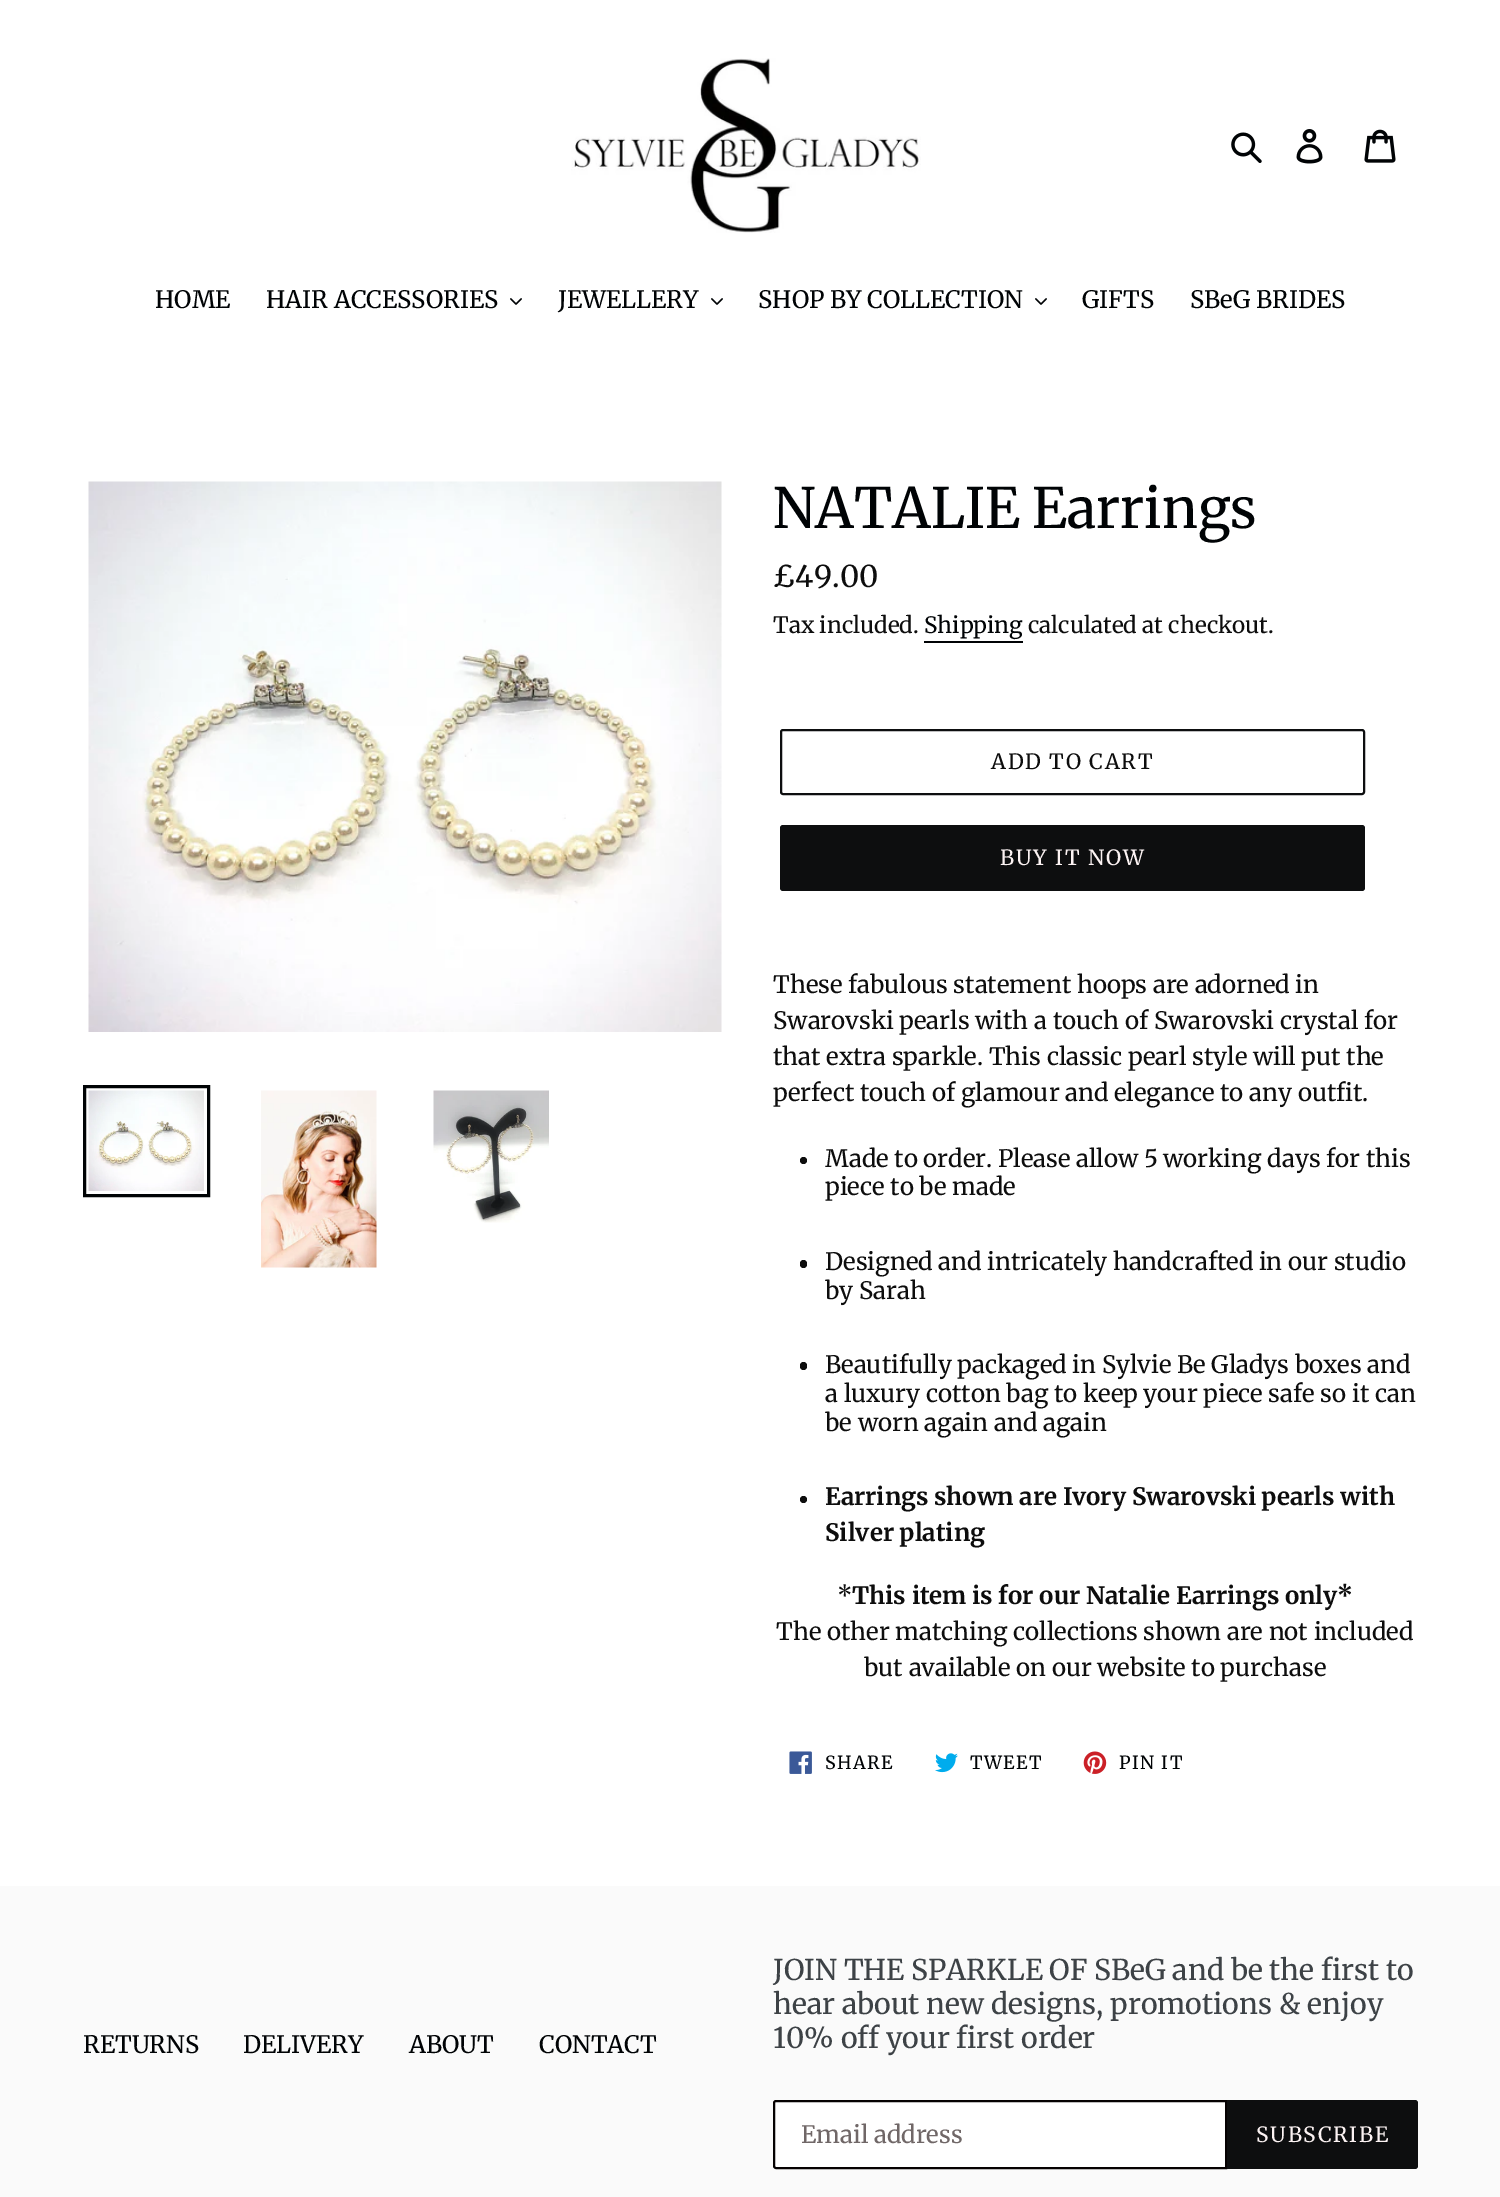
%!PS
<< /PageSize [1500 2197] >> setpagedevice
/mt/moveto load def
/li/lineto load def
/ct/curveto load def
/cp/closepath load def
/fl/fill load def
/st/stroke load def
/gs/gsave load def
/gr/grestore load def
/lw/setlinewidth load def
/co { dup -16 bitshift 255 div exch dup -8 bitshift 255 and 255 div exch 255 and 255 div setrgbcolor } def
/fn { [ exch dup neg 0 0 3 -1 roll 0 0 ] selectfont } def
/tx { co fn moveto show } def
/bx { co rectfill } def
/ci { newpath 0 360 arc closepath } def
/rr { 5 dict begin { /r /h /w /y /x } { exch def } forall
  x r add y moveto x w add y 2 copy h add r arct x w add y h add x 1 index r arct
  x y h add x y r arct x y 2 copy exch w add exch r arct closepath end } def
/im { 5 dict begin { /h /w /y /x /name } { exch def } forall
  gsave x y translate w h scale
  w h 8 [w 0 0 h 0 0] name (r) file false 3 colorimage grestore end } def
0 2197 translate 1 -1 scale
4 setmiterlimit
0 0 1500 2197 16#FFFFFF bx
(media/1.raw) 571 58 350 175 im
(media/2.raw) 1231 132 31 31 im
(media/3.raw) 1296 129 27 35 im
(media/4.raw) 1364 129 32 34 im
(media/5.raw) 510 298 12 7 im
(media/5.raw) 711 298 12 7 im
(media/5.raw) 1035 298 12 7 im
(media/6.raw) 88 481 634 551 im
16#000305 co
3 lw
84.5 1086.5 124 109 rectstroke
(media/7.raw) 88 1090 116 101 im
(media/8.raw) 261 1090 116 178 im
(media/9.raw) 433 1090 116 133 im
924 641 99 2 16#000305 bx
16#0D0E0F co
2 lw
781 730 583 64 2 rr st
780 825 585 66 3 rr fl
16#0D0D0D co
803.5 1160.5 3.5 ci fl
800 1260 7 8 3.5 rr fl
800 1362 7 8 3.5 rr fl
803.5 1499.5 3.5 ci fl
(media/10.raw) 789 1751 23 23 im
(media/11.raw) 935 1753 23 20 im
(media/12.raw) 1083 1751 24 23 im
0 1886 1500 311 16#FAFAFA bx
16#FFFFFF co
776 2101 mt 1226 2101 li 1226 2168 li 776 2168 li 775 2168 774 2167 774 2166 ct 774 2103 li 774 2102 775 2101 776 2101 ct cp gs fl gr
16#050101 co
st
16#0D0E0F co
1227 2100 mt 1415 2100 li 1416.5 2100 1418 2101.5 1418 2103 ct 1418 2166 li 1418 2167.5 1416.5 2169 1415 2169 ct 1227 2169 li cp fl
(HOME) 155 308 /Merriweather-Regular 24 16#000305 tx
(HAIR ACCESSORIES) 266 308 /Merriweather-Regular 24 16#000305 tx
(JEWELLERY) 558 308 /Merriweather-Regular 24 16#000305 tx
(SHOP BY COLLECTION) 758 308 /Merriweather-Regular 24 16#000305 tx
(GIFTS) 1082 308 /Merriweather-Regular 24 16#000305 tx
(SBeG BRIDES) 1190 308 /Merriweather-Regular 24 16#000305 tx
(NATALIE Earrings) 773 528 /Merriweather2-Regular 55.5 16#000305 tx
(£49.00) 773 587 /Merriweather-Regular 30 16#0D0D0D tx
(Tax included.) 773 633 /Merriweather-Regular 22.5 16#0D0D0D tx
(Shipping) 924 633 /Merriweather-Regular 22.5 16#000305 tx
(calculated at checkout.) 1028 633 /Merriweather-Regular 22.5 16#0D0D0D tx
/Merriweather-Regular 21 fn
991 769 mt 1.75 0 (ADD TO CART) ashow
16#FCF3F3 co
1000 865 mt 1.75 0 (BUY IT NOW) ashow
(These fabulous statement hoops are adorned in) 773 993 /Merriweather-Regular 24 16#0D0D0D tx
(Swarovski pearls with a touch of Swarovski crystal for) 773 1029 /Merriweather-Regular 24 16#0D0D0D tx
(that extra sparkle. This classic pearl style will put the) 773 1065 /Merriweather-Regular 24 16#0D0D0D tx
(perfect touch of glamour and elegance to any outfit.) 773 1101 /Merriweather-Regular 24 16#0D0D0D tx
(Made to order. Please allow 5 working days for this) 825 1167 /Merriweather-Regular 24 16#0D0D0D tx
(piece to be made) 825 1195 /Merriweather-Regular 24 16#0D0D0D tx
(Designed and intricately handcrafted in our studio) 825 1270 /Merriweather-Regular 24 16#0D0D0D tx
(by Sarah) 825 1299 /Merriweather-Regular 24 16#0D0D0D tx
(Beautifully packaged in Sylvie Be Gladys boxes and) 825 1373 /Merriweather-Regular 24 16#0D0D0D tx
(a luxury cotton bag to keep your piece safe so it can) 825 1402 /Merriweather-Regular 24 16#0D0D0D tx
(be worn again and again) 825 1431 /Merriweather-Regular 24 16#0D0D0D tx
(Earrings shown are Ivory Swarovski pearls with) 825 1505 /Merriweather-Bold 24 16#0D0D0D tx
(Silver plating) 825 1541 /Merriweather-Bold 24 16#0D0D0D tx
(*) 837 1604 /Merriweather-Regular 24 16#0D0D0D tx
(This item is for our Natalie Earrings only*) 852 1604 /Merriweather-Bold 24 16#0D0D0D tx
(The other matching collections shown are not included) 776 1640 /Merriweather-Regular 24 16#0D0D0D tx
(but available on our website to purchase) 864 1676 /Merriweather-Regular 24 16#0D0D0D tx
/Merriweather-Regular 18 fn
16#000305 co
825 1769 mt 1.5 0 (SHARE) ashow
970 1769 mt 1.5 0 (TWEET) ashow
1119 1769 mt 1.5 0 (PIN IT) ashow
(RETURNS) 83 2053 /Merriweather-Regular 24 16#000305 tx
(DELIVERY) 243 2053 /Merriweather-Regular 24 16#000305 tx
(ABOUT) 409 2053 /Merriweather-Regular 24 16#000305 tx
(CONTACT) 539 2053 /Merriweather-Regular 24 16#000305 tx
(JOIN THE SPARKLE OF SBeG and be the first to) 773 1980 /Merriweather-Regular 28.5 16#3D4246 tx
(hear about new designs, promotions & enjoy) 773 2014 /Merriweather-Regular 28.5 16#3D4246 tx
(10% off your first order) 773 2048 /Merriweather-Regular 28.5 16#3D4246 tx
(Email address) 801 2143 /Merriweather-Regular 24 16#706767 tx
/Merriweather-Regular 21 fn
16#FCF3F3 co
1256 2142 mt 1.75 0 (SUBSCRIBE) ashow
showpage
